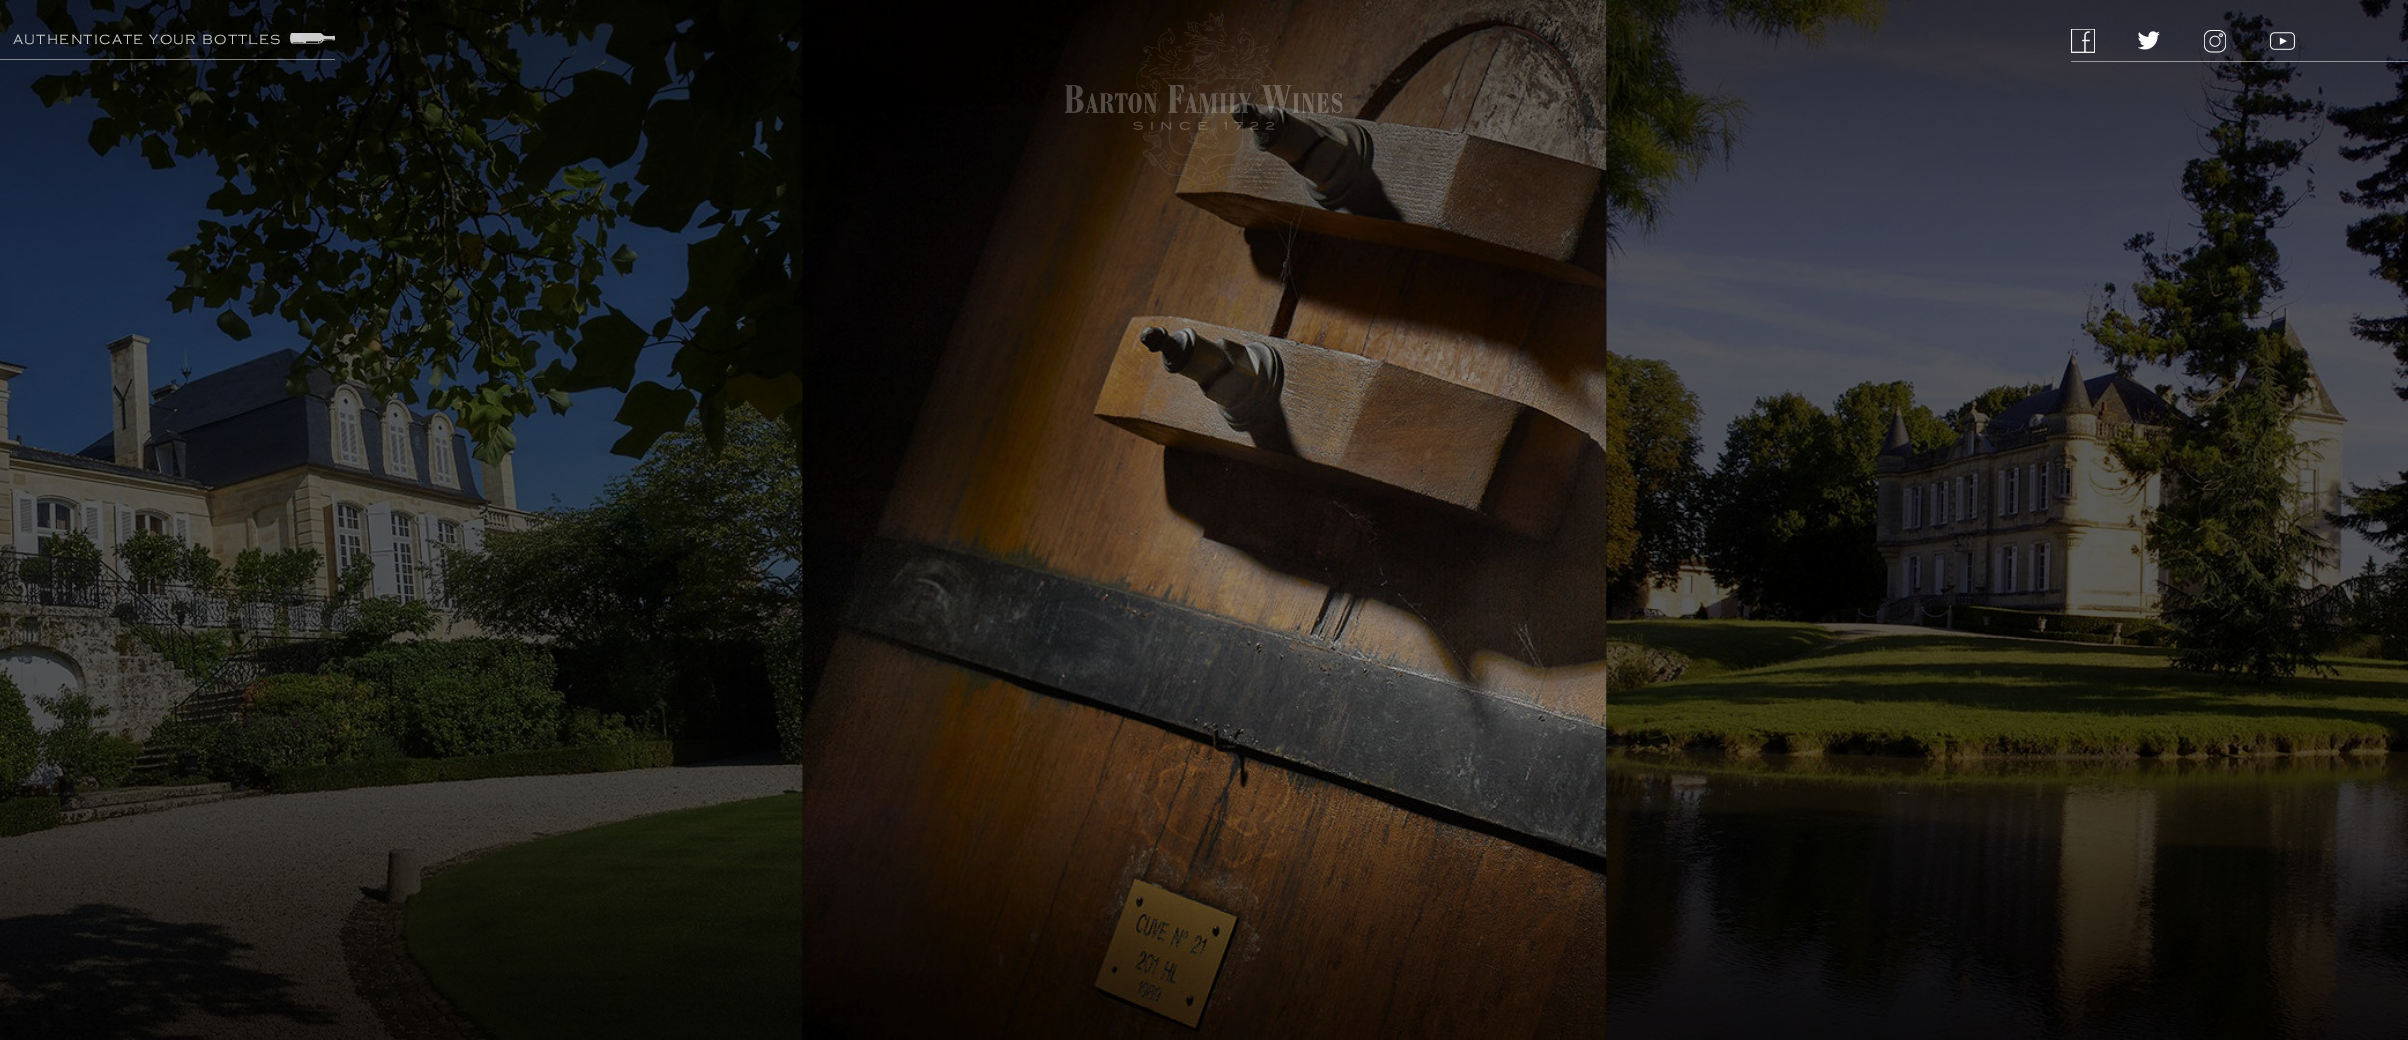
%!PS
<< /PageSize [2408 1040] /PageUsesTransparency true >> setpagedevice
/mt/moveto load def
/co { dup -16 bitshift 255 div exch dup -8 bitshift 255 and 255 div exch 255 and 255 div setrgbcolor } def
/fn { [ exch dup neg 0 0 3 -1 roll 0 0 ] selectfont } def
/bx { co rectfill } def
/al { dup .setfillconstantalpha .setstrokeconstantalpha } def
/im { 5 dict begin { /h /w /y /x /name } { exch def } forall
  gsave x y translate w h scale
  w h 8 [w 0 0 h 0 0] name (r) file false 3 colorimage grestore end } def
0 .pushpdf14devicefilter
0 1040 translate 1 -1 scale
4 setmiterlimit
0 0 2408 1040 16#000000 bx
(media/4.raw) 1606 0 802 1040 im
(media/2.raw) 802 0 805 1040 im
(media/1.raw) 0 0 803 1040 im
(media/3.raw) 1065 13 278 173 im
0.48 al
0 59 335 1 16#FFFFFF bx
1 al
(media/5.raw) 290 33 45 11 im
0.5 al
2071 61 337 1 16#FFFFFF bx
1 al
(media/6.raw) 2071 29 24 24 im
(media/7.raw) 2138 31 22 19 im
(media/8.raw) 2204 30 22 23 im
(media/9.raw) 2270 32 25 18 im
/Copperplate-Light 13.75 fn
16#CECFCF co
13 44 mt 1.25 0 (AUTHENTICATE YOUR BOTTLES) ashow
.poppdf14devicefilter showpage
